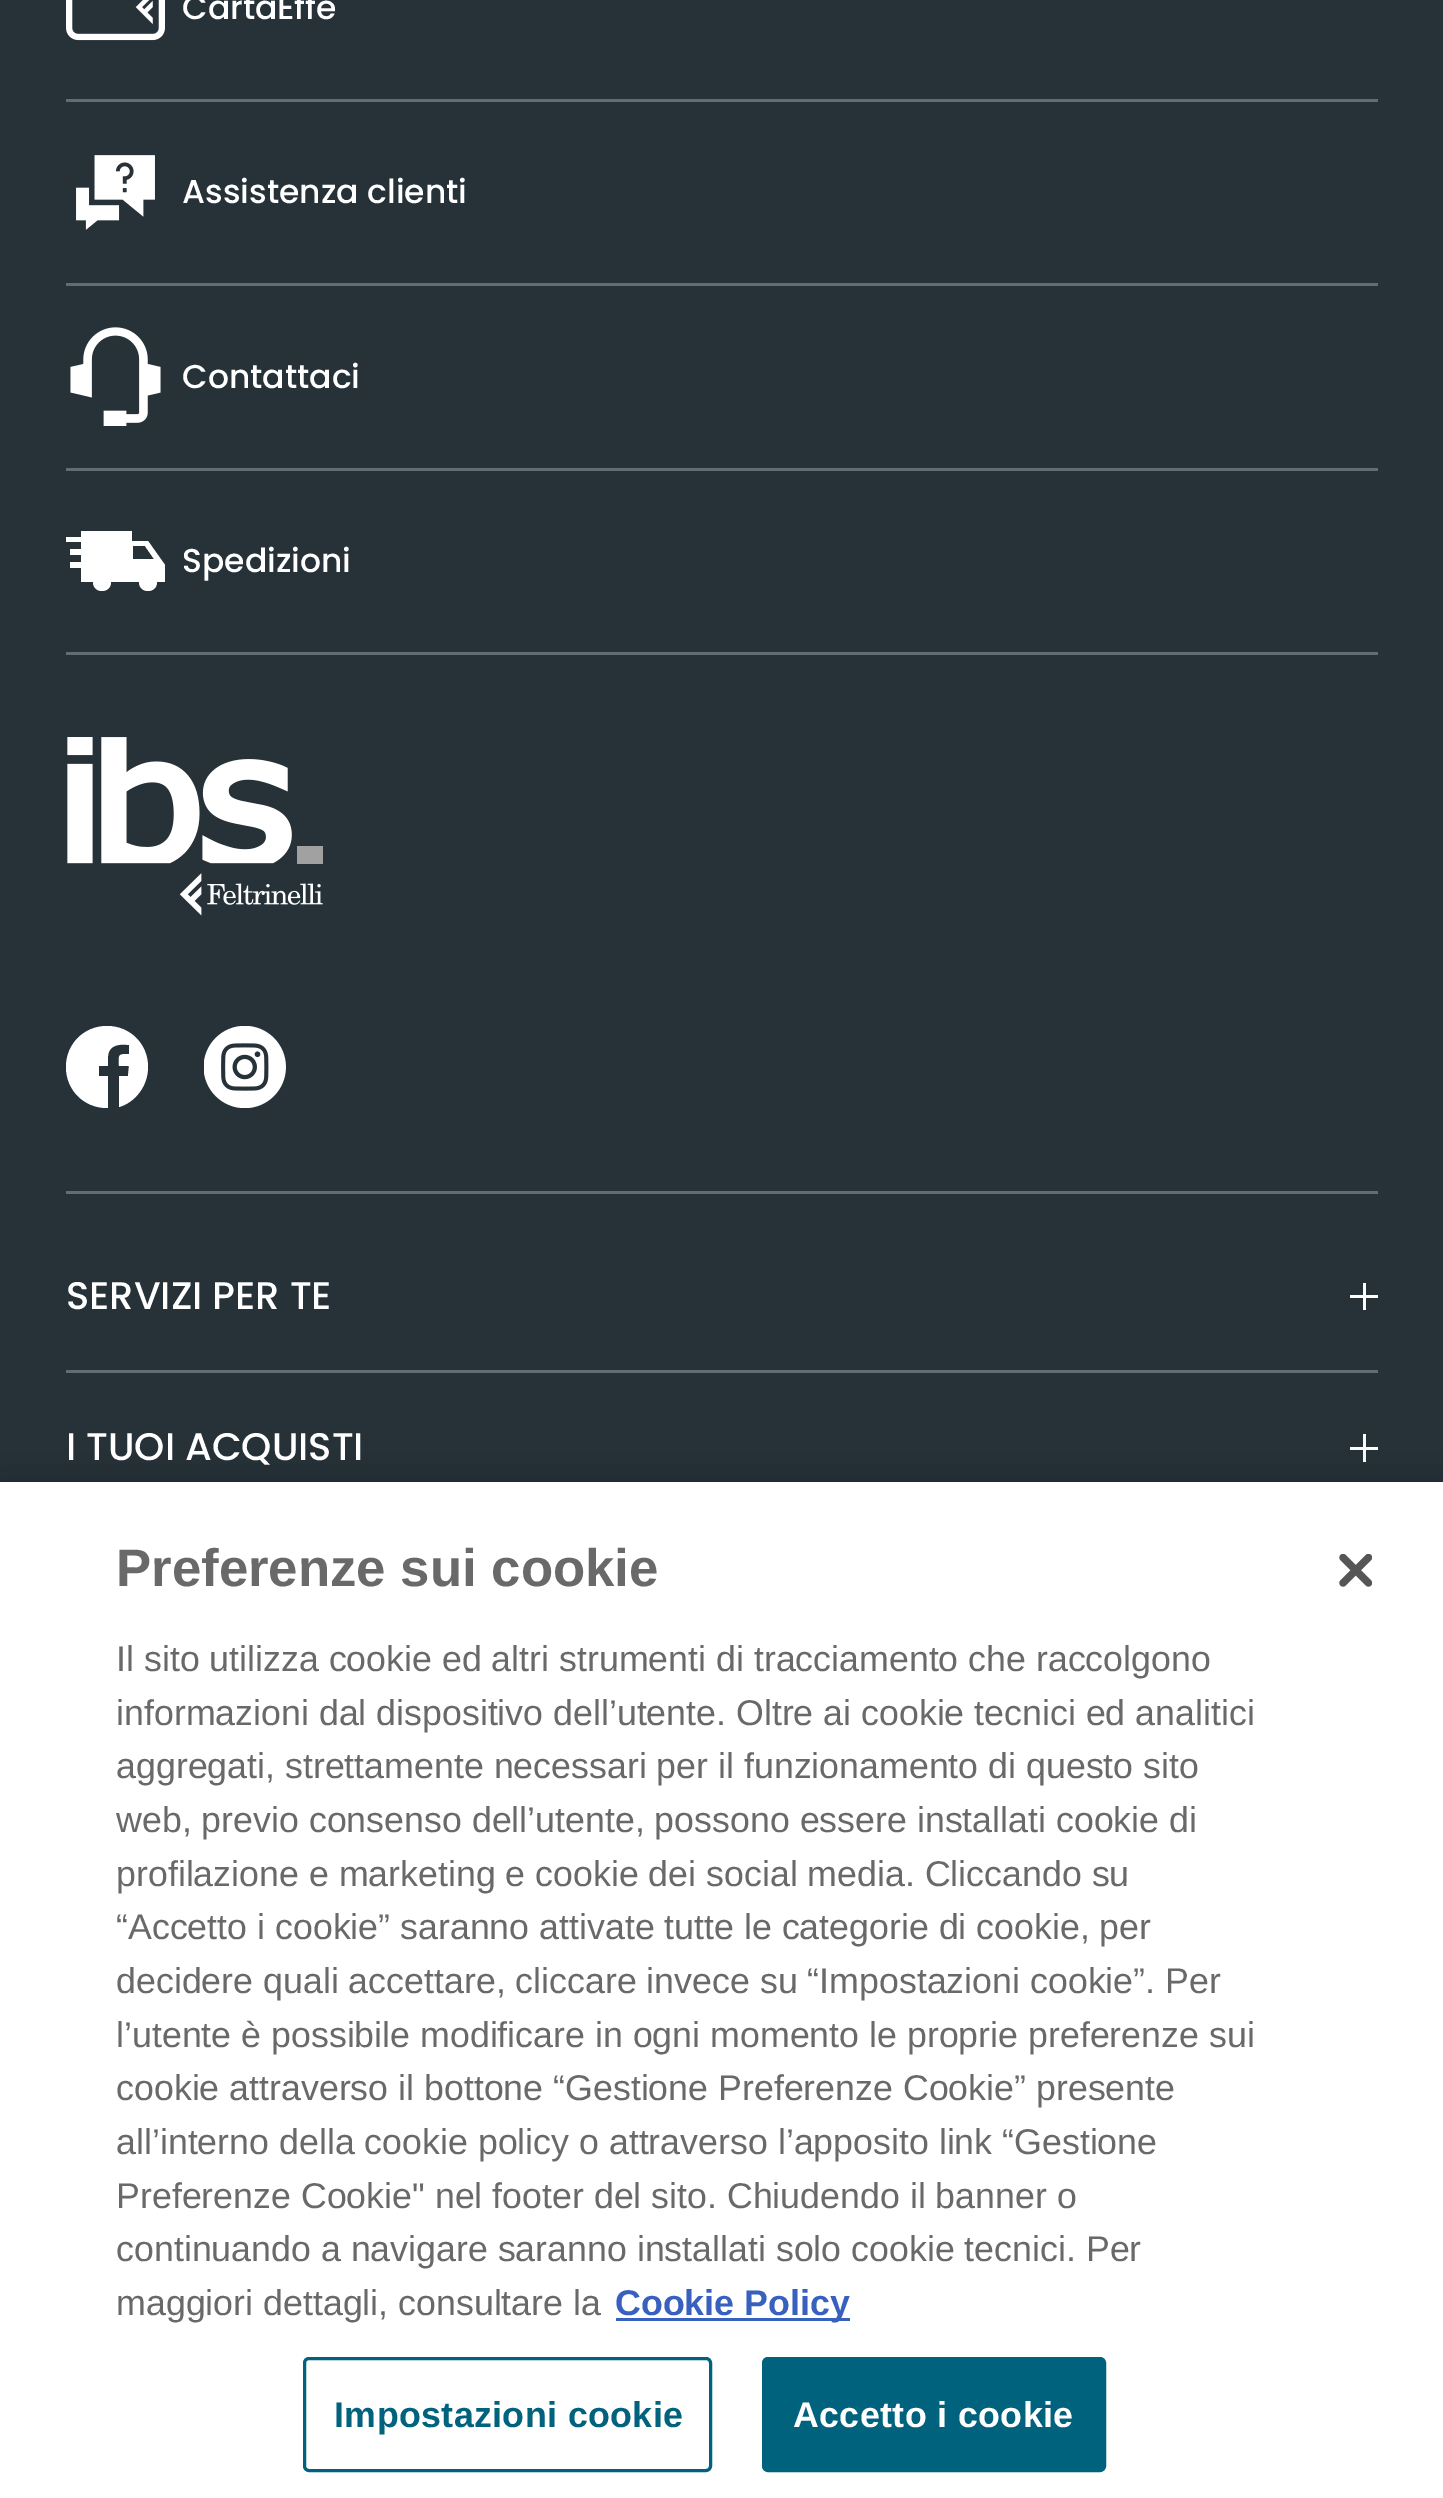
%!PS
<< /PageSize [1443 2498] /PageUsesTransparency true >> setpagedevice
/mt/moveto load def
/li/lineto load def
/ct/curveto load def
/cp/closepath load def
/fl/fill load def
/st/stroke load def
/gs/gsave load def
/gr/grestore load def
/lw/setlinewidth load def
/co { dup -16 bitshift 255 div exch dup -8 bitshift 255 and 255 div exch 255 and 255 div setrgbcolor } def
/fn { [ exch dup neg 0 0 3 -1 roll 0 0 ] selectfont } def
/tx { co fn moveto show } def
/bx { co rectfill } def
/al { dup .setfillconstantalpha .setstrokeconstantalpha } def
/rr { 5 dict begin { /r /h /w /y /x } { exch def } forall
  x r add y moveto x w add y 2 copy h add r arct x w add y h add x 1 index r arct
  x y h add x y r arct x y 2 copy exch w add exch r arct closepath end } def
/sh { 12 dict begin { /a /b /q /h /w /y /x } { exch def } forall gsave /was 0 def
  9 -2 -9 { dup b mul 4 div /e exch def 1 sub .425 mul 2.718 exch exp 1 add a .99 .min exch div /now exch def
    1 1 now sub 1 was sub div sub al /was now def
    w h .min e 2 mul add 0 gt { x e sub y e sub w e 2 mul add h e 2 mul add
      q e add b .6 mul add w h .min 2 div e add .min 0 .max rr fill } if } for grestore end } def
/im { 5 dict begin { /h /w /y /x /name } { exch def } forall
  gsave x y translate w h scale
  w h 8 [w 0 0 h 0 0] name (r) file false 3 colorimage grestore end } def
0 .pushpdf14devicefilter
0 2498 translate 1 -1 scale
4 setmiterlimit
0 0 1443 2498 16#263238 bx
66 99 1312 3 16#616D72 bx
(media/1.raw) 66 0 99 41 im
66 283 1312 3 16#616D72 bx
(media/2.raw) 76 155 79 75 im
66 468 1312 3 16#616D72 bx
(media/3.raw) 70 327 91 99 im
66 652 1312 3 16#616D72 bx
16#FFFFFF co
165 565 mt 148 541 li 132 541 li 132 531 li 81 531 li 81 537 li 66 537 li 66 542 li 81 542 li 81 549 li 70 549 li 70 555 li 81 555 li 81 562 li 70 562 li 70 568 li 81 568 li 81 582 li 93 582 li 93 594 111 594 111 582 ct 139 582 li 139 594 157 594 157 582 ct 165 582 li cp 133 546 mt 145 546 li 154 559 li 133 559 li cp fl
66 1191 1312 3 16#616D72 bx
(media/4.raw) 67 737 256 179 im
16#FFFFFF co
148 1067 mt 148 1044 130 1026 107 1026 ct 84 1026 66 1044 66 1067 ct 66 1090 84 1108 107 1108 ct 108 1108 li 108 1076 li 99 1076 li 99 1066 li 108 1066 li 108 1056 li 109 1044 121 1044 129 1045 ct 129 1054 li 117 1054 119 1055 119 1066 ct 129 1066 li 128 1076 li 119 1076 li 119 1107 li 136 1102 148 1085 148 1067 ct cp fl
(media/5.raw) 204 1026 82 82 im
66 1370 1312 3 16#616D72 bx
1363 1283 3 27 16#FFFFFF bx
1350 1295 28 3 16#FFFFFF bx
1363 1434 3 28 16#FFFFFF bx
1350 1447 28 3 16#FFFFFF bx
16#000000 co
0 1482 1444 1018 0 25 .2 sh
0 1482 1443 1016 16#FFFFFF bx
616 2318 234 3 16#3860BE bx
16#00627D co
3 lw
304.5 2358.5 406 112 4.5 rr st
763.5 2358.5 341 112 4.5 rr gs fl gr
st
(media/6.raw) 1339 1554 33 33 im
(CartaEffe) 182 19 /Poppins-Medium 33 16#FFFFFF tx
(Assistenza clienti) 182 203 /Poppins-Medium 33 16#FFFFFF tx
(Contattaci) 182 388 /Poppins-Medium 33 16#FFFFFF tx
(Spedizioni) 182 572 /Poppins-Medium 33 16#FFFFFF tx
(SERVIZI PER TE) 66 1309 /Poppins-Medium 38.5 16#FFFFFF tx
(I TUOI ACQUISTI) 66 1460 /Poppins-Medium 38.5 16#FFFFFF tx
(Preferenze sui cookie) 116 1586 /LiberationSans-Bold 52.75 16#696969 tx
(Il sito utilizza cookie ed altri strumenti di tracciamento che raccolgono) 116 1671 /LiberationSans-Regular 35.75 16#696969 tx
(informazioni dal dispositivo dell’utente. Oltre ai cookie tecnici ed analitici) 116 1725 /LiberationSans-Regular 35.75 16#696969 tx
(aggregati, strettamente necessari per il funzionamento di questo sito) 116 1778 /LiberationSans-Regular 35.75 16#696969 tx
(web, previo consenso dell’utente, possono essere installati cookie di) 116 1832 /LiberationSans-Regular 35.75 16#696969 tx
(profilazione e marketing e cookie dei social media. Cliccando su) 116 1886 /LiberationSans-Regular 35.75 16#696969 tx
(“Accetto i cookie” saranno attivate tutte le categorie di cookie, per) 116 1939 /LiberationSans-Regular 35.75 16#696969 tx
(decidere quali accettare, cliccare invece su “Impostazioni cookie”. Per) 116 1993 /LiberationSans-Regular 35.75 16#696969 tx
(l’utente è possibile modificare in ogni momento le proprie preferenze sui) 116 2047 /LiberationSans-Regular 35.75 16#696969 tx
(cookie attraverso il bottone “Gestione Preferenze Cookie” presente) 116 2100 /LiberationSans-Regular 35.75 16#696969 tx
(all’interno della cookie policy o attraverso l’apposito link “Gestione) 116 2154 /LiberationSans-Regular 35.75 16#696969 tx
(Preferenze Cookie" nel footer del sito. Chiudendo il banner o) 116 2208 /LiberationSans-Regular 35.75 16#696969 tx
(continuando a navigare saranno installati solo cookie tecnici. Per) 116 2261 /LiberationSans-Regular 35.75 16#696969 tx
(maggiori dettagli, consultare la) 116 2315 /LiberationSans-Regular 35.75 16#696969 tx
(Cookie Policy) 615 2315 /LiberationSans-Bold 35.75 16#3860BE tx
16#00627D co
334 2427 mt .4 0 (Impostazioni cookie) ashow
16#FFFFFF co
793 2427 mt .4 0 (Accetto i cookie) ashow
.poppdf14devicefilter showpage
